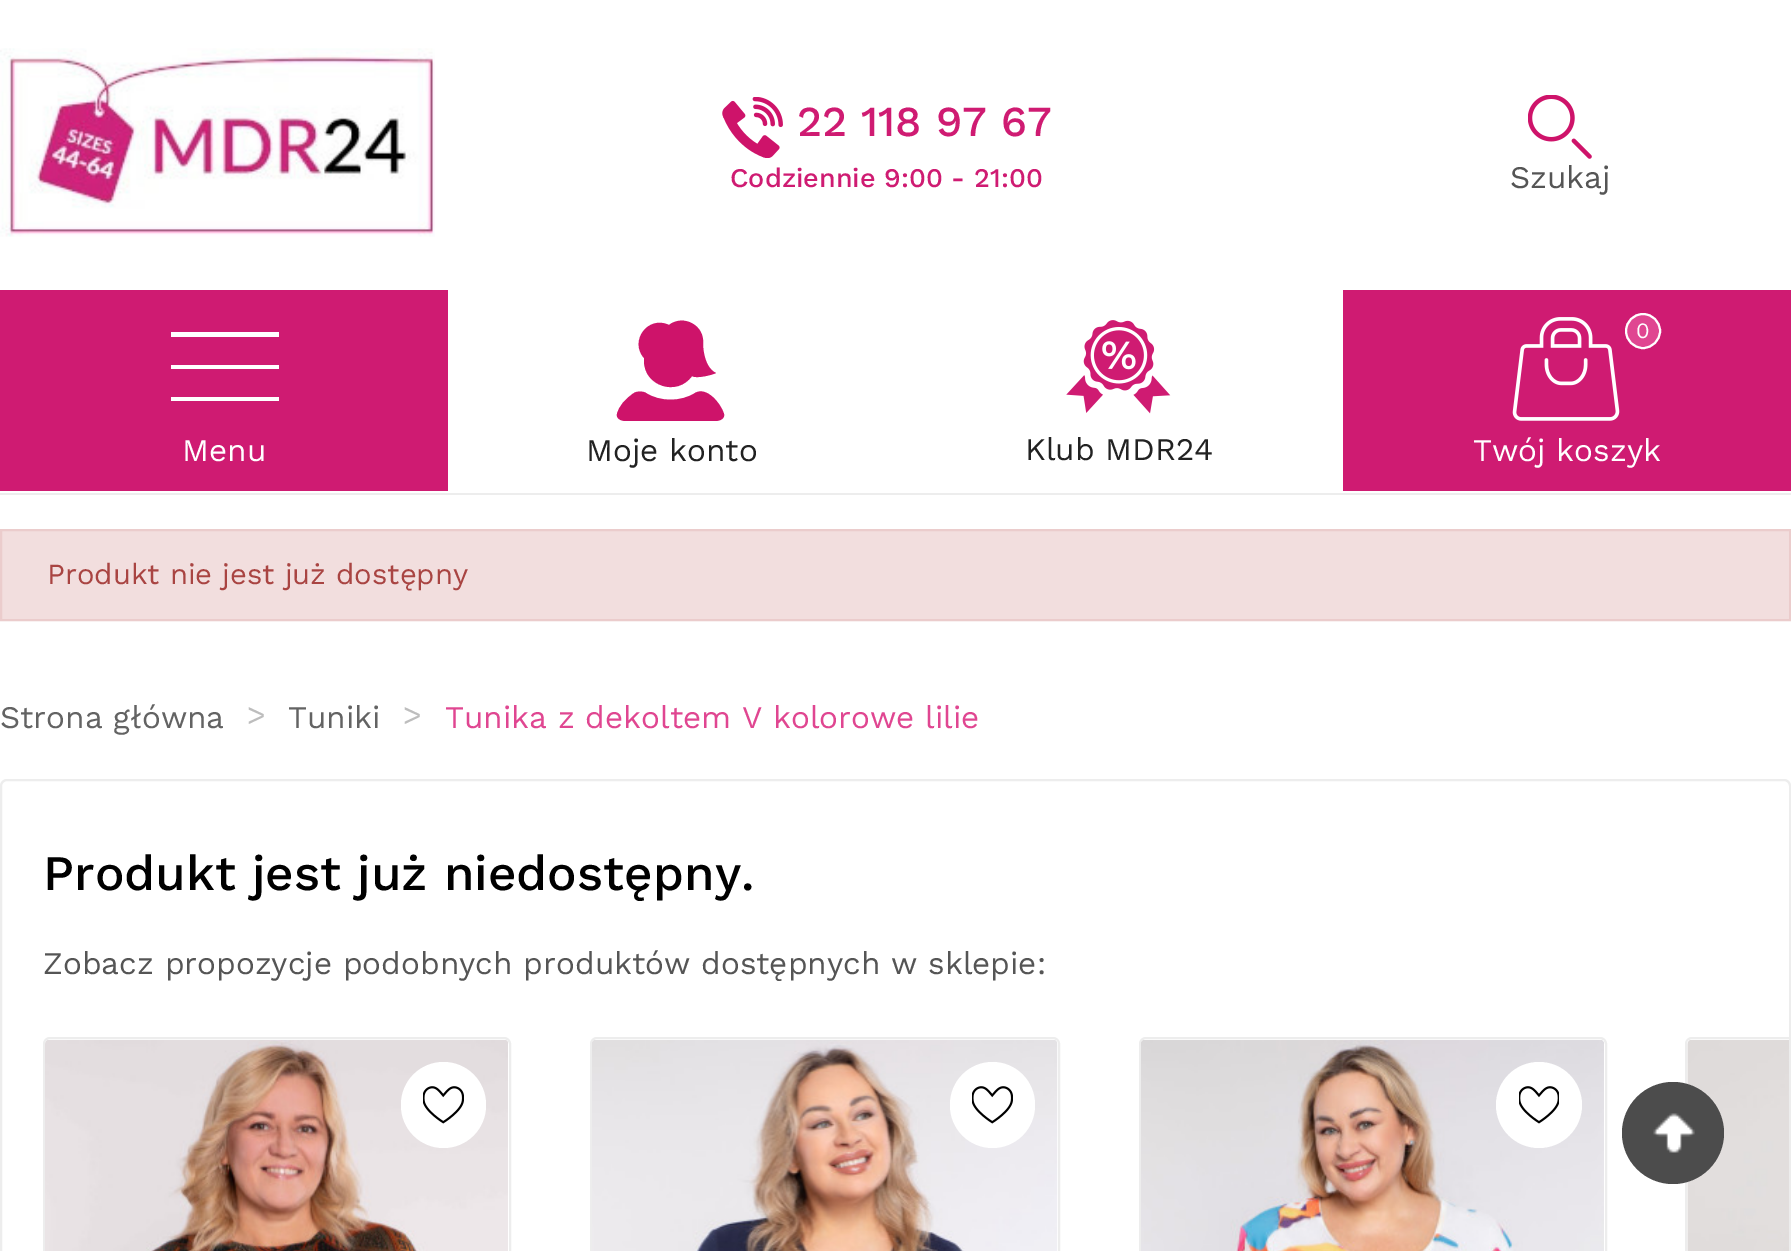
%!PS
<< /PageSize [1791 1251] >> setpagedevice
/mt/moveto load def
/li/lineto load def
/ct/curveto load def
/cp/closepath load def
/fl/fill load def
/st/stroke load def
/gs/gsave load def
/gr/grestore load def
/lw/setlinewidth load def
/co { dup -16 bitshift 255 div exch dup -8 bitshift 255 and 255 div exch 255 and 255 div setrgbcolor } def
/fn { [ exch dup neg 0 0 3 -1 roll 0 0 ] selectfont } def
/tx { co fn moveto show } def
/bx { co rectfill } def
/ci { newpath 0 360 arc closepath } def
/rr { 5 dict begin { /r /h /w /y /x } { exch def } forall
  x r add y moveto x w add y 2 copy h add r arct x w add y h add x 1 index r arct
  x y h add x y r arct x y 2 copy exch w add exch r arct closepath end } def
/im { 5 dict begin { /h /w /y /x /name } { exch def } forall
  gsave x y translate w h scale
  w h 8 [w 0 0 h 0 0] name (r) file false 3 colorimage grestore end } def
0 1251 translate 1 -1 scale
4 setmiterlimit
0 0 1791 1251 16#FFFFFF bx
0 493 1791 2 16#EDEDED bx
(media/1.raw) 0 48 435 189 im
(media/2.raw) 722 97 61 61 im
(media/3.raw) 1528 95 64 64 im
0 290 448 201 16#CF1B72 bx
16#FFFFFF co
171 332 mt 171 337 li 279 337 li 279 332 li cp 171 365 mt 171 369 li 279 369 li 279 365 li cp 171 397 mt 171 401 li 279 401 li 279 397 li cp fl
16#CE136A co
724 414 mt 721 404 707 386 695 393 ct 681 402 660 402 646 393 ct 643 391 637 391 634 393 ct 625 399 619 406 617 414 ct 616 418 620 421 626 421 ct 715 421 li 721 421 725 418 724 414 ct cp fl
644 361 mt 644 386 677 397 692 376 ct 696 379 712 375 716 373 ct 703 367 703 344 703 344 ct 705 325 683 314 669 325 ct 648 315 629 341 644 358 ct cp fl
(media/4.raw) 1066 320 105 94 im
1343 290 448 201 16#CF1B72 bx
16#E04691 co
1643 331 17 ci gs fl gr
16#FFFFFF co
2 lw
st
(media/5.raw) 1512 317 108 104 im
16#F2DEDE co
1 530 mt 1790 530 li 1790 620 li 1 620 li cp gs fl gr
16#EBCCCC co
st
16#EDEDED co
1 780 1789 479 6 rr st
44 1038 466 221 6 rr st
(media/6.raw) 45 1040 463 211 im
16#FFFFFF co
401 1062 85 86 42.5 rr fl
(media/7.raw) 423 1086 41 38 im
16#EDEDED co
591 1038 468 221 6 rr st
(media/8.raw) 592 1040 466 211 im
16#FFFFFF co
950 1062 85 86 42.5 rr fl
(media/7.raw) 972 1086 41 38 im
16#EDEDED co
1140 1038 466 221 6 rr st
(media/9.raw) 1141 1040 463 211 im
16#FFFFFF co
1539 1105 43 ci fl
(media/10.raw) 1519 1086 40 38 im
gs
2 1026 1787 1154 rectclip
16#EDEDED co
1686 1038 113 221 6 rr st
gr
(media/11.raw) 1687 1040 102 211 im
16#4C4C4C co
1673 1133 51 ci fl
(media/12.raw) 1653 1113 42 40 im
(22 118 97 67) 797 136 /WorkSans-Medium 42.75 16#CF1B72 tx
(Codziennie 9:00 - 21:00) 730 187 /WorkSans-Medium 27 16#CF1B72 tx
(Szukaj) 1510 188 /WorkSans-Regular 31.5 16#555555 tx
(Menu) 182 461 /WorkSans-Regular 31.5 16#FFFFFF tx
(Moje konto) 586 461 /WorkSans-Regular 31.5 16#222222 tx
(Klub MDR24) 1025 460 /WorkSans-Regular 31.5 16#222222 tx
(0) 1636 338 /WorkSans-Regular 22 16#FFFFFF tx
(Twój koszyk) 1473 461 /WorkSans-Regular 31.5 16#FFFFFF tx
(Produkt nie jest już dostępny) 47 584 /WorkSans-Regular 29.25 16#A94442 tx
(Strona główna) 0 728 /WorkSans-Regular 31.5 16#636363 tx
(>) 247 725 /WorkSans-Regular 31.5 16#BDBDBD tx
(Tuniki) 288 728 /WorkSans-Regular 31.5 16#636363 tx
(>) 403 725 /WorkSans-Regular 31.5 16#BDBDBD tx
(Tunika z dekoltem V kolorowe lilie) 445 728 /WorkSans-Regular 31.5 16#E04691 tx
(Produkt jest już niedostępny.) 43 890 /WorkSans-Medium 49.5 16#000000 tx
(Zobacz propozycje podobnych produktów dostępnych w sklepie:) 43 974 /WorkSans-Regular 31.5 16#555555 tx
showpage
